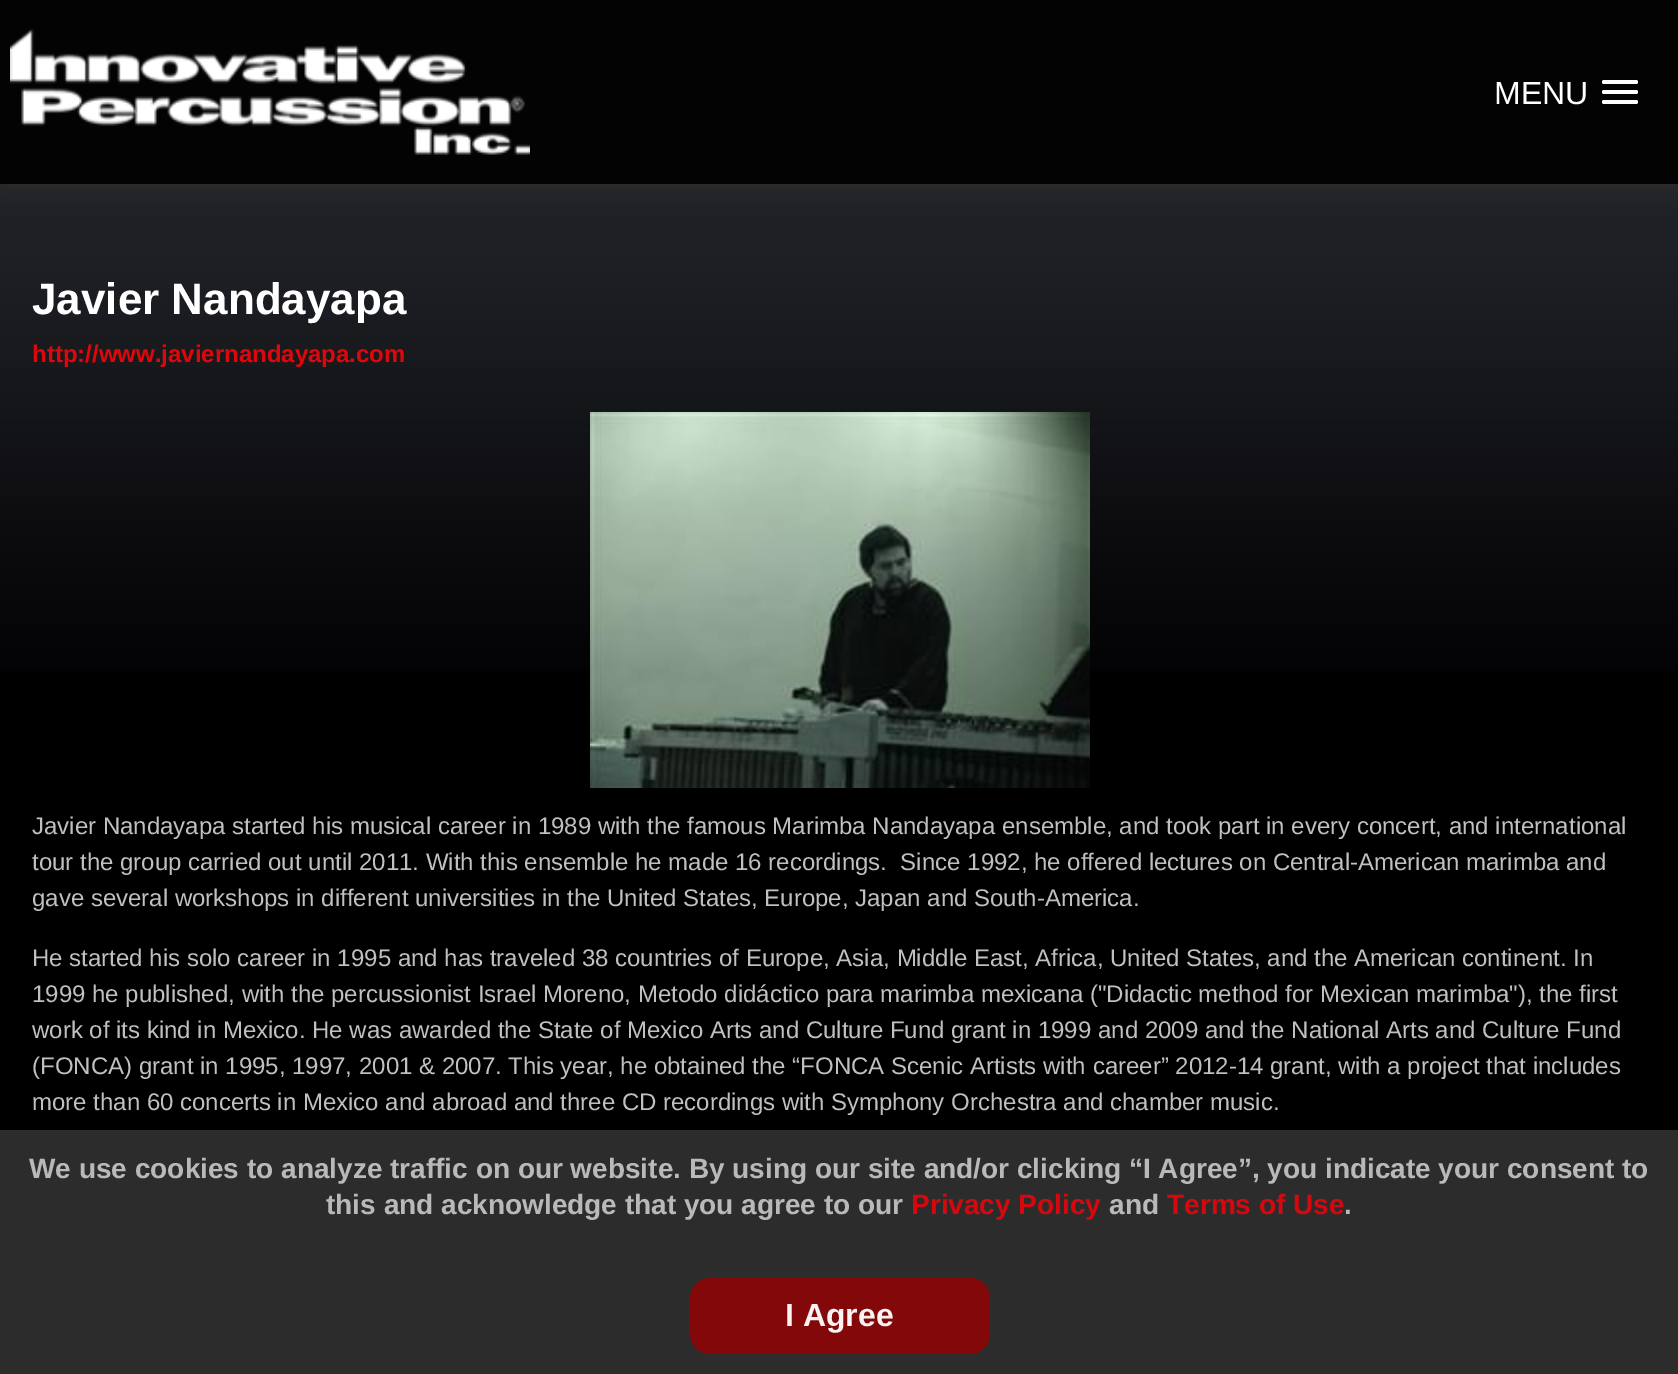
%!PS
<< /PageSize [1678 1374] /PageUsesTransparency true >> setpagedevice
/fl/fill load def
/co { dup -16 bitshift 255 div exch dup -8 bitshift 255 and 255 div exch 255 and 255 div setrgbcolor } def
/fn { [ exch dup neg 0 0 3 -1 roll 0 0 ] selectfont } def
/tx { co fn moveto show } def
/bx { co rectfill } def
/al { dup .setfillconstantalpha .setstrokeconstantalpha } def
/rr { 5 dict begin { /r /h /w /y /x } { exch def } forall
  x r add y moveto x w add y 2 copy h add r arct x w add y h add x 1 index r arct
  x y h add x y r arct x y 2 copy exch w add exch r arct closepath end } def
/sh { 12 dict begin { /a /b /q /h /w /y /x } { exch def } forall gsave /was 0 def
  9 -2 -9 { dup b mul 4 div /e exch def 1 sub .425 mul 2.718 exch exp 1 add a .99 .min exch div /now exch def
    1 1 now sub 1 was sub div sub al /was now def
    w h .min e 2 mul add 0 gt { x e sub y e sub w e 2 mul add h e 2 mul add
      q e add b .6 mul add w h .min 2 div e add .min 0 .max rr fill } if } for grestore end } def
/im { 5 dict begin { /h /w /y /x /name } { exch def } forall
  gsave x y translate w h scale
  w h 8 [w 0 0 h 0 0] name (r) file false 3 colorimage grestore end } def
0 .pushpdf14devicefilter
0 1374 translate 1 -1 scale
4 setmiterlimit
0 0 1678 1374 16#000000 bx
0 1130 1678 244 16#2C2C2C bx
(media/2.raw) 0 184 1678 487 im
16#333333 co
0 0 1678 184 0 10 1 sh
0 0 1678 184 16#030304 bx
(media/1.raw) 10 29 520 126 im
16#FFFFFF co
1602 80 36 4 2 rr fl
1602 90 36 4 2 rr fl
1602 100 36 4 2 rr fl
(media/3.raw) 590 412 500 376 im
0.95 al
16#880608 co
690 1278 300 76 20 rr fl
1 al
(MENU) 1494 104 /LiberationSans-Regular 32 16#FFFFFF tx
(Javier Nandayapa) 32 314 /LiberationSans-Bold 44 16#FFFFFF tx
(http://www.javiernandayapa.com) 32 362 /LiberationSans-Bold 24 16#DF060C tx
(Javier Nandayapa started his musical career in 1989 with the famous Marimba Nandayapa ensemble, and took part in every concert, and international) 32 834 /LiberationSans-Regular 24 16#C0C0C0 tx
(tour the group carried out until 2011. With this ensemble he made 16 recordings.  Since 1992, he offered lectures on Central-American marimba and) 32 870 /LiberationSans-Regular 24 16#C0C0C0 tx
(gave several workshops in different universities in the United States, Europe, Japan and South-America.) 32 906 /LiberationSans-Regular 24 16#C0C0C0 tx
(He started his solo career in 1995 and has traveled 38 countries of Europe, Asia, Middle East, Africa, United States, and the American continent. In) 32 966 /LiberationSans-Regular 24 16#C0C0C0 tx
(1999 he published, with the percussionist Israel Moreno, Metodo didáctico para marimba mexicana \("Didactic method for Mexican marimba"\), the first) 32 1002 /LiberationSans-Regular 24 16#C0C0C0 tx
(work of its kind in Mexico. He was awarded the State of Mexico Arts and Culture Fund grant in 1999 and 2009 and the National Arts and Culture Fund) 32 1038 /LiberationSans-Regular 24 16#C0C0C0 tx
(\(FONCA\) grant in 1995, 1997, 2001 & 2007. This year, he obtained the “FONCA Scenic Artists with career” 2012-14 grant, with a project that includes) 32 1074 /LiberationSans-Regular 24 16#C0C0C0 tx
(more than 60 concerts in Mexico and abroad and three CD recordings with Symphony Orchestra and chamber music.) 32 1110 /LiberationSans-Regular 24 16#C0C0C0 tx
(We use cookies to analyze traffic on our website. By using our site and/or clicking “I Agree”, you indicate your consent to) 29 1178 /LiberationSans-Bold 28 16#B9B9B9 tx
(this and acknowledge that you agree to our) 326 1214 /LiberationSans-Bold 28 16#B9B9B9 tx
(Privacy Policy) 911 1214 /LiberationSans-Bold 28 16#D6080E tx
(and) 1109 1214 /LiberationSans-Bold 28 16#B9B9B9 tx
(Terms of Use) 1167 1214 /LiberationSans-Bold 28 16#D6080E tx
(.) 1344 1214 /LiberationSans-Bold 28 16#B9B9B9 tx
(I Agree) 785 1326 /LiberationSans-Bold 32 16#F9F3F3 tx
.poppdf14devicefilter showpage
